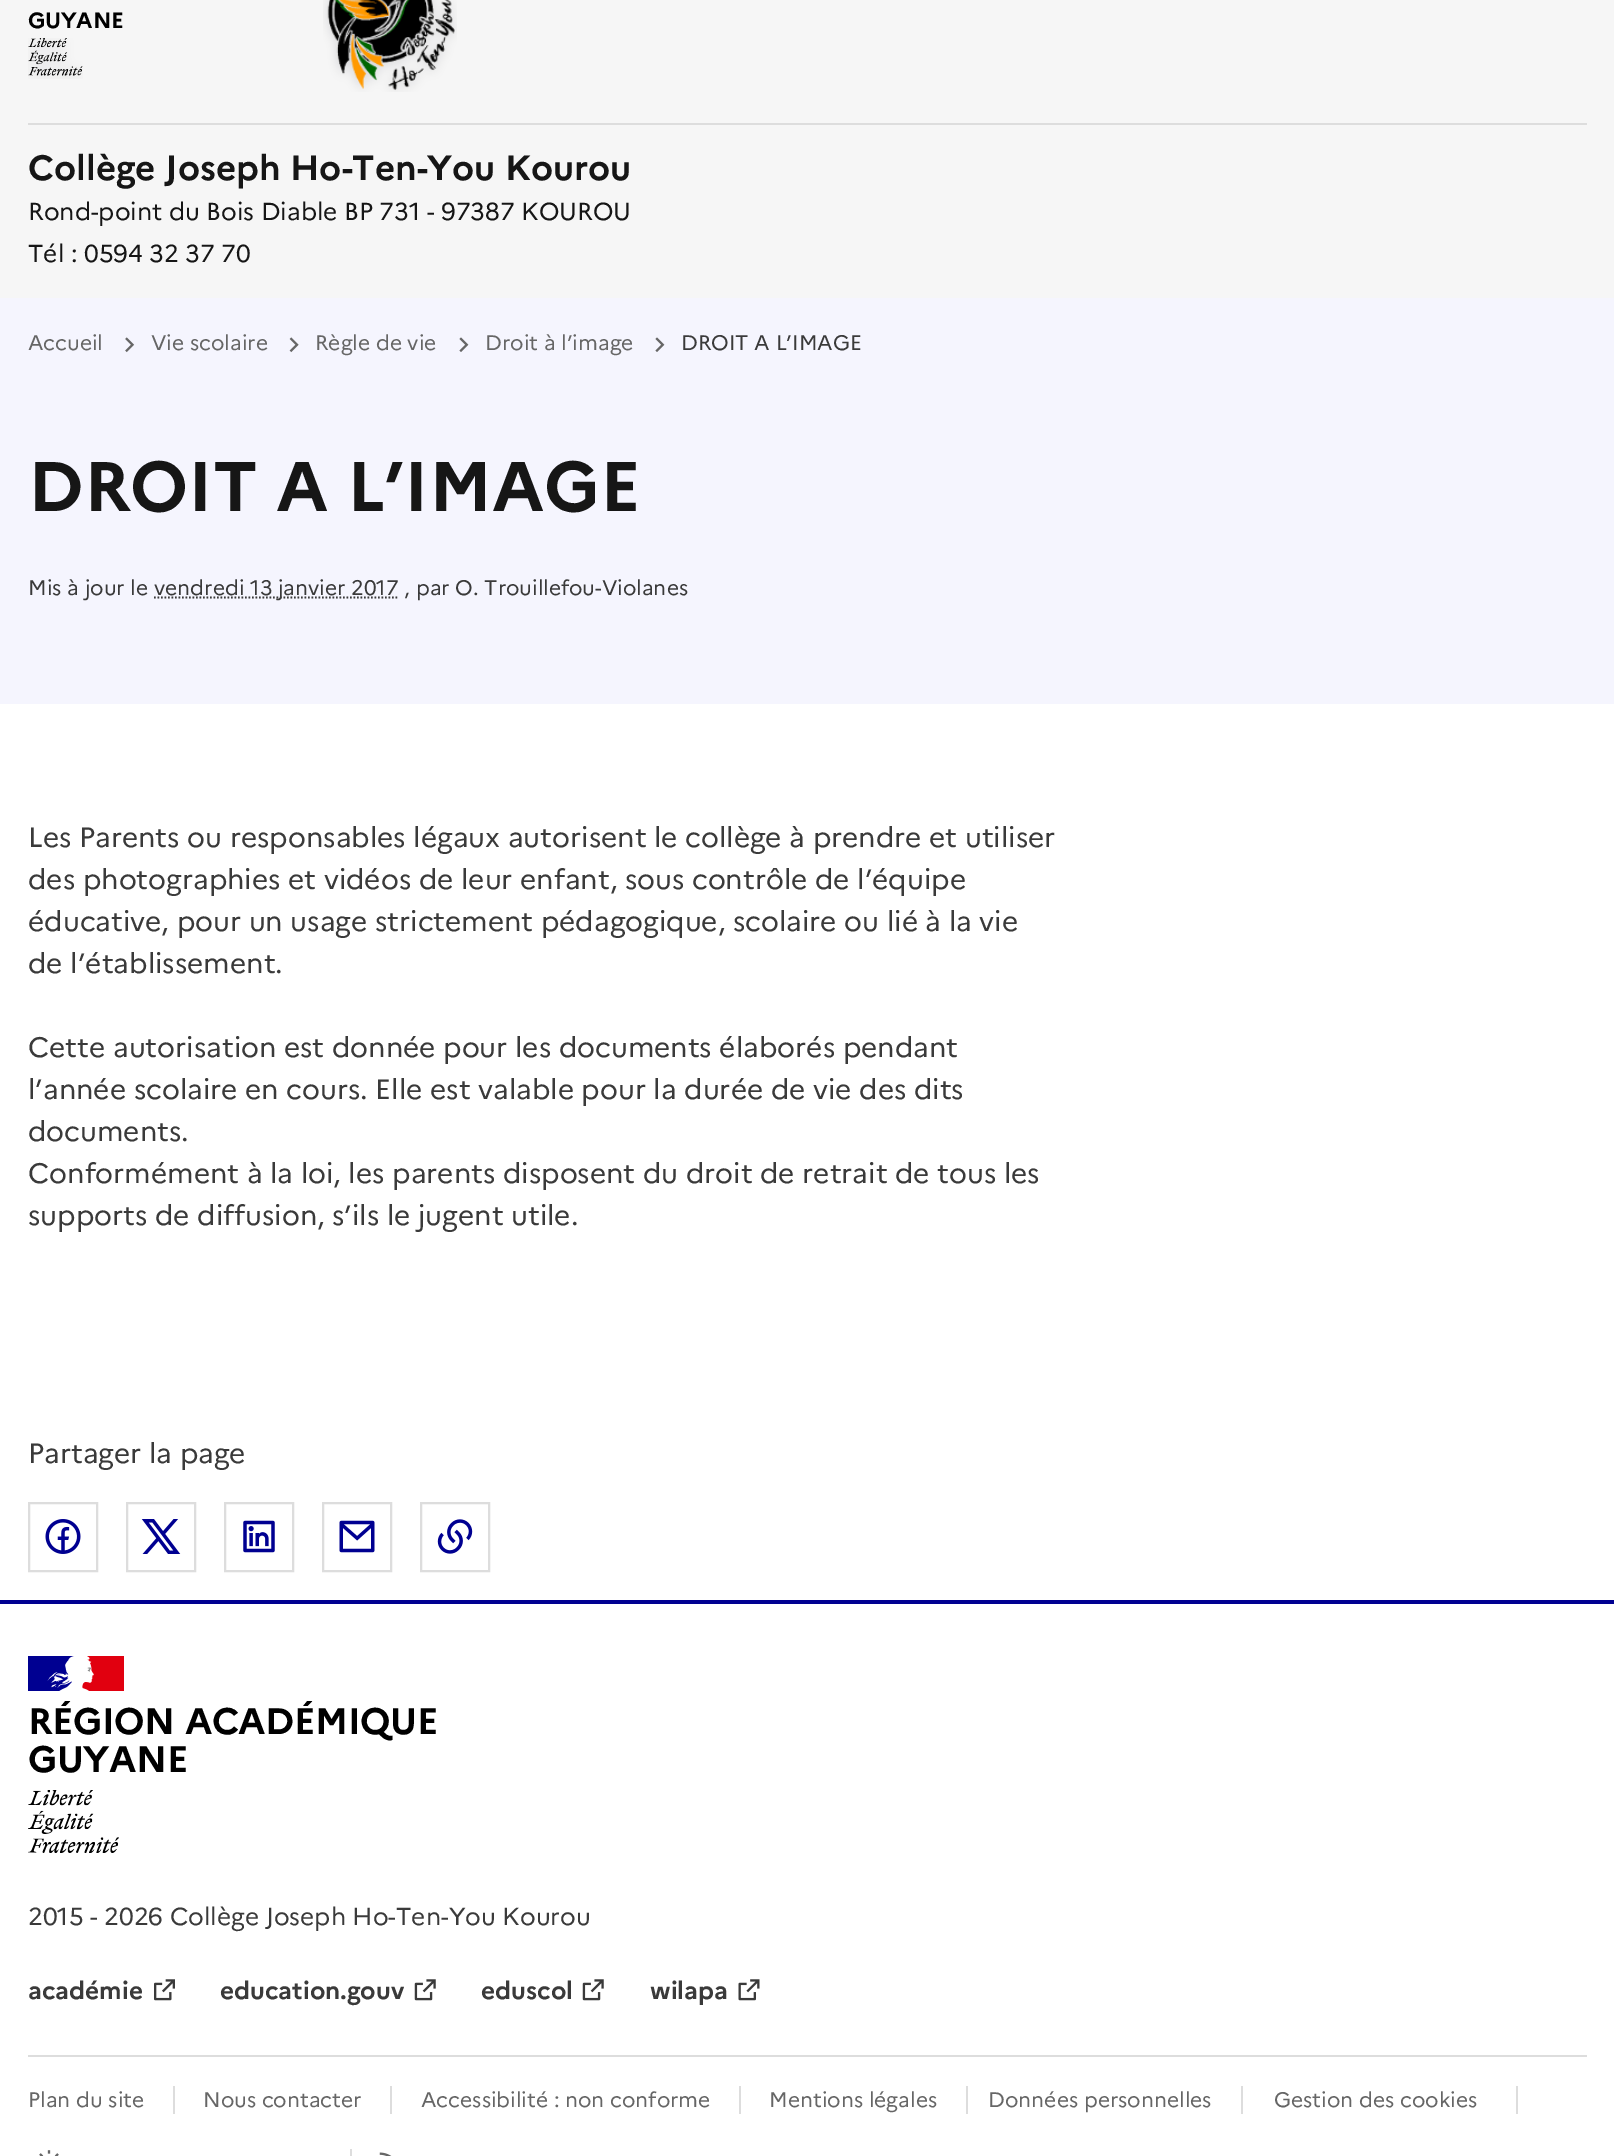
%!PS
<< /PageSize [1614 2156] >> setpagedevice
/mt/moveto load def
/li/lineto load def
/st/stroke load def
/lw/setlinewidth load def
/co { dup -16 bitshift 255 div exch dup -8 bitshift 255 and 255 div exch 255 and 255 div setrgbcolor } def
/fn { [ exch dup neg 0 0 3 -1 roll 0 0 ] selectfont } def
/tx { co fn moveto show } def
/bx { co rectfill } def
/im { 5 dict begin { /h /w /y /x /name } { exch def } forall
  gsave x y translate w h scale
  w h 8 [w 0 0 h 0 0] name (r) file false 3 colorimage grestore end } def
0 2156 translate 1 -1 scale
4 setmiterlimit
0 0 1614 2156 16#FFFFFF bx
0 0 1614 298 16#F6F6F6 bx
(media/1.raw) 28 38 55 41 im
(media/2.raw) 323 0 134 92 im
28 123 1559 2 16#DDDDDD bx
0 298 1614 406 16#F5F5FE bx
(media/3.raw) 125 337 10 16 im
(media/4.raw) 289 337 10 16 im
(media/5.raw) 459 337 10 15 im
(media/5.raw) 655 337 10 15 im
16#3A3A3A co
1.8 lw
[1.75 1.75] 0 setdash
154 597.5 mt 398.5 597.5 li st
16#DDDDDD co
2 lw
[] 0 setdash
29 1503 68 68 rectstroke
(media/6.raw) 45 1519 36 35 im
127 1503 68 68 rectstroke
(media/7.raw) 141 1519 40 35 im
225 1503 68 68 rectstroke
(media/8.raw) 243 1520 32 33 im
323 1503 68 68 rectstroke
(media/9.raw) 339 1520 36 33 im
421 1503 68 68 rectstroke
(media/10.raw) 437 1519 36 35 im
0 1600 1614 4 16#000091 bx
28 1656 46 35 16#000091 bx
82 1656 42 35 16#E1000F bx
(media/11.raw) 47 1656 47 35 im
(media/12.raw) 28 1790 91 63 im
(media/13.raw) 154 1979 21 22 im
(media/14.raw) 414 1979 22 22 im
(media/14.raw) 582 1979 22 22 im
(media/15.raw) 738 1979 22 22 im
28 2055 1559 2 16#DDDDDD bx
1516 2086 2 28 16#DDDDDD bx
(media/16.raw) 39 2150 20 6 im
173 2086 2 28 16#DDDDDD bx
390 2086 2 28 16#DDDDDD bx
739 2086 2 28 16#DDDDDD bx
966 2086 2 28 16#DDDDDD bx
1241 2086 2 28 16#DDDDDD bx
350 2149 2 7 16#DDDDDD bx
(media/17.raw) 379 2152 13 4 im
/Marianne-Bold 22 fn
16#000000 co
28 28 mt -.25 0 (GUYANE) ashow
(Collège Joseph Ho-Ten-You Kourou) 28 180 /Marianne-Bold 35 16#161616 tx
(Rond-point du Bois Diable BP 731 - 97387 KOUROU) 28 220 /Marianne-Regular 24.5 16#161616 tx
(Tél : 0594 32 37 70) 28 262 /Marianne-Regular 24.5 16#161616 tx
(Accueil) 28 350 /Marianne-Regular 21 16#666666 tx
(Vie scolaire) 151 350 /Marianne-Regular 21 16#666666 tx
(Règle de vie) 315 350 /Marianne-Regular 21 16#666666 tx
(Droit à l’image) 485 350 /Marianne-Regular 21 16#666666 tx
(DROIT A L’IMAGE) 681 350 /Marianne-Regular 21 16#3A3A3A tx
(DROIT A L’IMAGE) 28 511 /Marianne-Bold 70 16#161616 tx
(Mis à jour le) 28 595 /Marianne-Regular 21 16#3A3A3A tx
(vendredi 13 janvier 2017 , par O. Trouillefou-Violanes) 154 595 /Marianne-Regular 21 16#3A3A3A tx
(Les Parents ou responsables légaux autorisent le collège à prendre et utiliser) 28 847 /Marianne-Regular 28 16#3A3A3A tx
(des photographies et vidéos de leur enfant, sous contrôle de l’équipe) 28 889 /Marianne-Regular 28 16#3A3A3A tx
(éducative, pour un usage strictement pédagogique, scolaire ou lié à la vie) 28 931 /Marianne-Regular 28 16#3A3A3A tx
(de l’établissement.) 28 973 /Marianne-Regular 28 16#3A3A3A tx
(Cette autorisation est donnée pour les documents élaborés pendant) 28 1057 /Marianne-Regular 28 16#3A3A3A tx
(l’année scolaire en cours. Elle est valable pour la durée de vie des dits) 28 1099 /Marianne-Regular 28 16#3A3A3A tx
(documents.) 28 1141 /Marianne-Regular 28 16#3A3A3A tx
(Conformément à la loi, les parents disposent du droit de retrait de tous les) 28 1183 /Marianne-Regular 28 16#3A3A3A tx
(supports de diffusion, s’ils le jugent utile.) 28 1225 /Marianne-Regular 28 16#3A3A3A tx
(Partager la page) 28 1463 /Marianne-Regular 28 16#3A3A3A tx
/Marianne-Bold 36.75 fn
16#000000 co
28 1734 mt -.4 0 (RÉGION ACADÉMIQUE) ashow
28 1772 mt -.4 0 (GUYANE) ashow
(2015 - 2026 Collège Joseph Ho-Ten-You Kourou) 28 1925 /Marianne-Regular 24.5 16#3A3A3A tx
(académie) 28 1999 /Marianne-Bold 24.5 16#3A3A3A tx
(education.gouv) 220 1999 /Marianne-Bold 24.5 16#3A3A3A tx
(eduscol) 481 1999 /Marianne-Bold 24.5 16#3A3A3A tx
(wilapa) 650 1999 /Marianne-Bold 24.5 16#3A3A3A tx
(Plan du site) 28 2107 /Marianne-Regular 21 16#666666 tx
(Nous contacter) 203 2107 /Marianne-Regular 21 16#666666 tx
(Accessibilité : non conforme) 421 2107 /Marianne-Regular 21 16#666666 tx
(Mentions légales) 769 2107 /Marianne-Regular 21 16#666666 tx
(Données personnelles) 988 2107 /Marianne-Regular 21 16#666666 tx
(Gestion des cookies) 1274 2107 /Marianne-Regular 21 16#666666 tx
showpage
